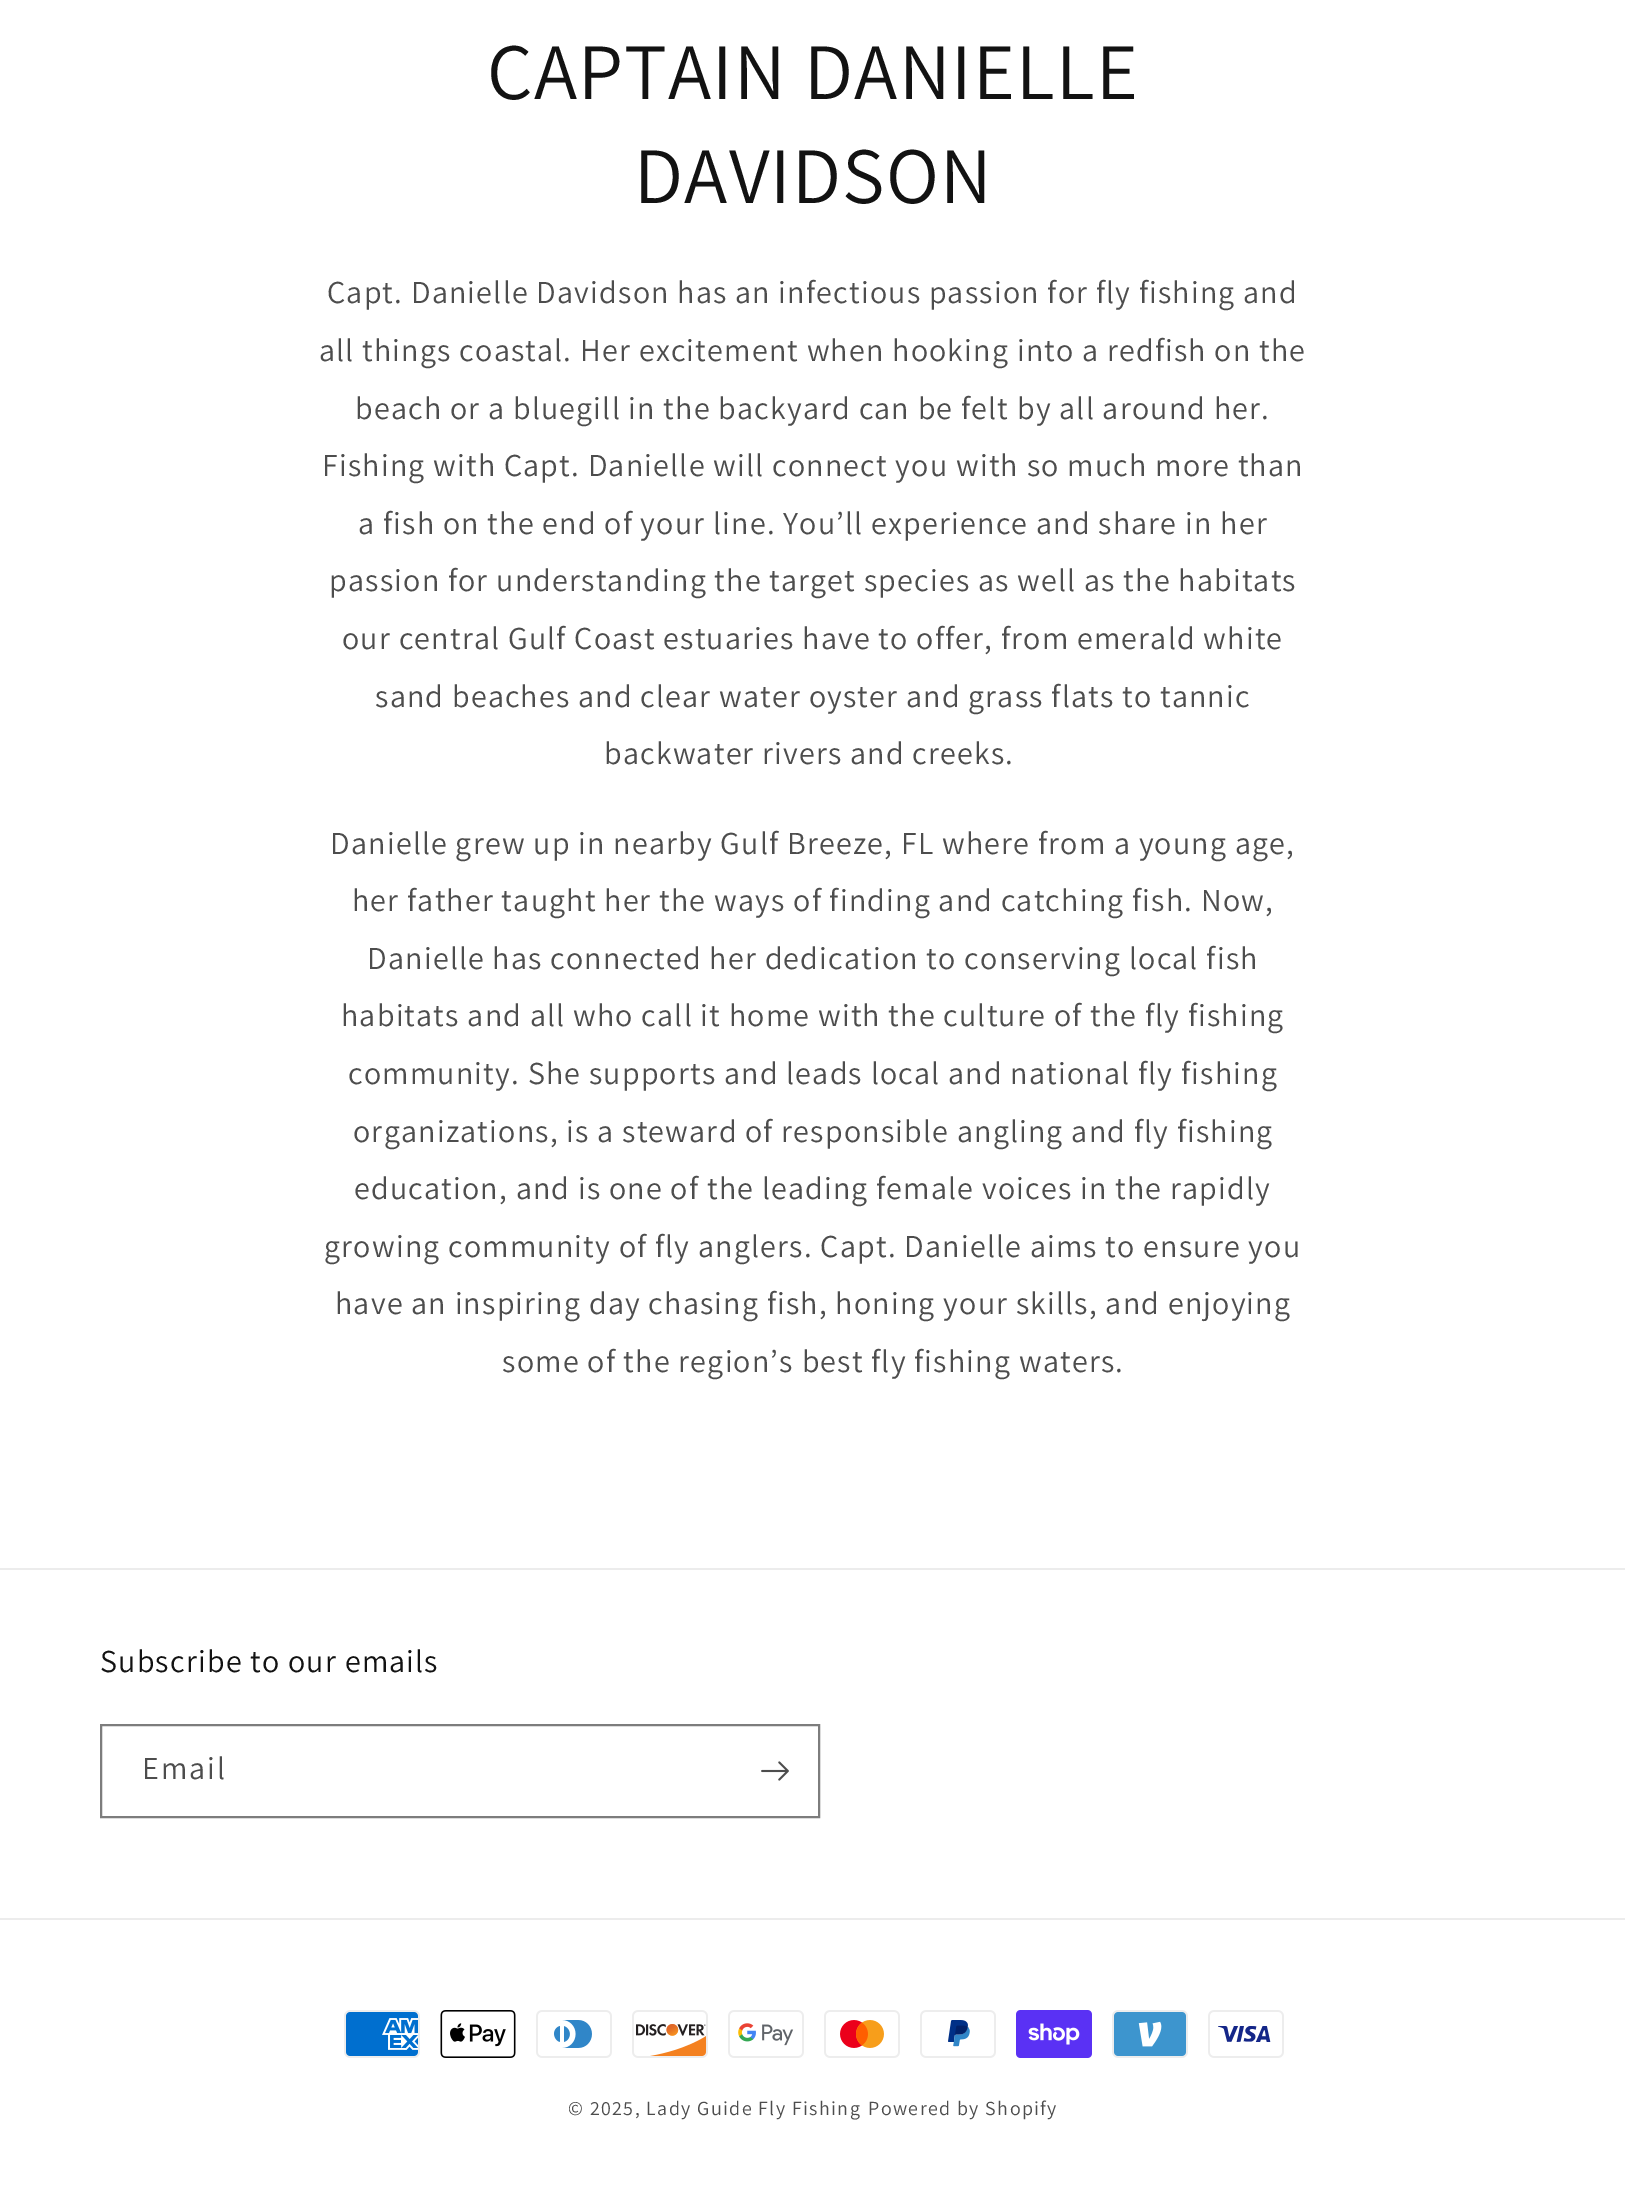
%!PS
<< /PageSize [1625 2200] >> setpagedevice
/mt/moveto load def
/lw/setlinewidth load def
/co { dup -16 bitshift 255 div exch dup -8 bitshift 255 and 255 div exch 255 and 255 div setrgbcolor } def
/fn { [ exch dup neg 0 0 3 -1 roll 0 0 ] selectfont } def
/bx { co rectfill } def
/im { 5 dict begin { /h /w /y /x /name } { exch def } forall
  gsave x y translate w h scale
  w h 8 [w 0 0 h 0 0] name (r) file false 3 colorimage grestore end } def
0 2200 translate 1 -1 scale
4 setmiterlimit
0 0 1625 2200 16#FFFFFF bx
0 1568 1625 2 16#ECECEC bx
16#7D7D7D co
2 lw
101 1725 718 92 rectstroke
(media/1.raw) 761 1761 28 20 im
0 1918 1625 2 16#ECECEC bx
(media/2.raw) 344 2010 76 48 im
(media/3.raw) 440 2010 76 48 im
(media/4.raw) 536 2010 76 48 im
(media/5.raw) 632 2010 76 48 im
(media/6.raw) 728 2010 76 48 im
(media/7.raw) 824 2010 76 48 im
(media/8.raw) 920 2010 76 48 im
(media/9.raw) 1016 2010 76 48 im
(media/10.raw) 1112 2010 76 48 im
(media/11.raw) 1208 2010 76 48 im
/Assistant-Regular 80 fn
16#121212 co
487 99 mt 1.2 0 (CAPTAIN DANIELLE) ashow
634 203 mt 1.2 0 (DAVIDSON) ashow
/Assistant-Regular 32 fn
16#4D4D4D co
327 303 mt 1.2 0 (Capt. Danielle Davidson has an infectious passion for fly fishing and) ashow
319 361 mt 1.2 0 (all things coastal. Her excitement when hooking into a redfish on the) ashow
355 419 mt 1.2 0 (beach or a bluegill in the backyard can be felt by all around her.) ashow
322 476 mt 1.2 0 (Fishing with Capt. Danielle will connect you with so much more than) ashow
358 534 mt 1.2 0 (a fish on the end of your line. You’ll experience and share in her) ashow
329 591 mt 1.2 0 (passion for understanding the target species as well as the habitats) ashow
342 649 mt 1.2 0 (our central Gulf Coast estuaries have to offer, from emerald white) ashow
375 707 mt 1.2 0 (sand beaches and clear water oyster and grass flats to tannic) ashow
604 764 mt 1.2 0 (backwater rivers and creeks.) ashow
330 854 mt 1.2 0 (Danielle grew up in nearby Gulf Breeze, FL where from a young age,) ashow
352 911 mt 1.2 0 (her father taught her the ways of finding and catching fish. Now,) ashow
367 969 mt 1.2 0 (Danielle has connected her dedication to conserving local fish) ashow
341 1026 mt 1.2 0 (habitats and all who call it home with the culture of the fly fishing) ashow
348 1084 mt 1.2 0 (community. She supports and leads local and national fly fishing) ashow
353 1142 mt 1.2 0 (organizations, is a steward of responsible angling and fly fishing) ashow
354 1199 mt 1.2 0 (education, and is one of the leading female voices in the rapidly) ashow
324 1257 mt 1.2 0 (growing community of fly anglers. Capt. Danielle aims to ensure you) ashow
335 1314 mt 1.2 0 (have an inspiring day chasing fish, honing your skills, and enjoying) ashow
502 1372 mt 1.2 0 (some of the region’s best fly fishing waters.) ashow
16#121212 co
100 1672 mt 1.2 0 (Subscribe to our emails) ashow
16#4D4D4D co
142 1779 mt 2 0 (Email) ashow
/Assistant-Regular 20 fn
568 2115 mt 1.4 0 (© 2025, Lady Guide Fly Fishing) ashow
868 2115 mt 1.4 0 (Powered by Shopify) ashow
showpage
